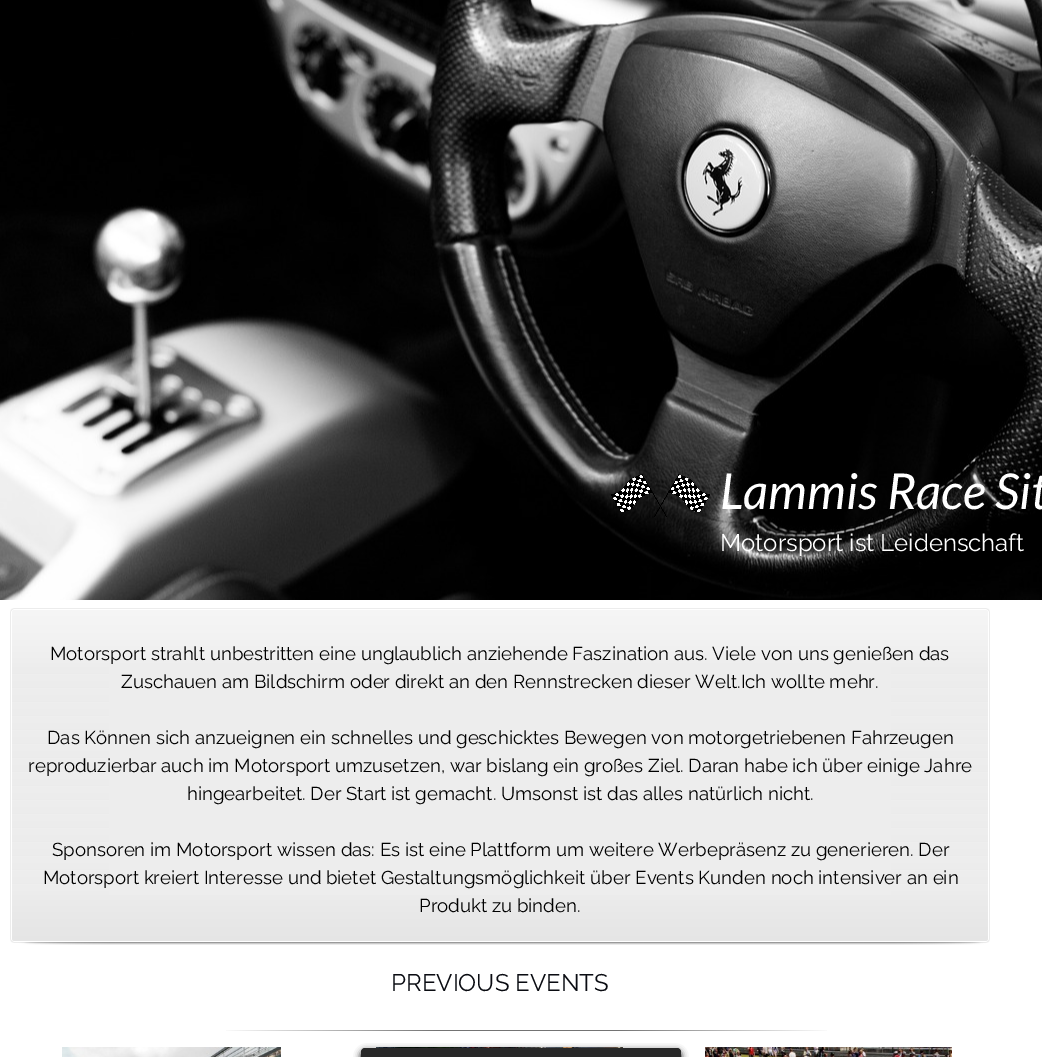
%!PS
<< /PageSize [1042 1057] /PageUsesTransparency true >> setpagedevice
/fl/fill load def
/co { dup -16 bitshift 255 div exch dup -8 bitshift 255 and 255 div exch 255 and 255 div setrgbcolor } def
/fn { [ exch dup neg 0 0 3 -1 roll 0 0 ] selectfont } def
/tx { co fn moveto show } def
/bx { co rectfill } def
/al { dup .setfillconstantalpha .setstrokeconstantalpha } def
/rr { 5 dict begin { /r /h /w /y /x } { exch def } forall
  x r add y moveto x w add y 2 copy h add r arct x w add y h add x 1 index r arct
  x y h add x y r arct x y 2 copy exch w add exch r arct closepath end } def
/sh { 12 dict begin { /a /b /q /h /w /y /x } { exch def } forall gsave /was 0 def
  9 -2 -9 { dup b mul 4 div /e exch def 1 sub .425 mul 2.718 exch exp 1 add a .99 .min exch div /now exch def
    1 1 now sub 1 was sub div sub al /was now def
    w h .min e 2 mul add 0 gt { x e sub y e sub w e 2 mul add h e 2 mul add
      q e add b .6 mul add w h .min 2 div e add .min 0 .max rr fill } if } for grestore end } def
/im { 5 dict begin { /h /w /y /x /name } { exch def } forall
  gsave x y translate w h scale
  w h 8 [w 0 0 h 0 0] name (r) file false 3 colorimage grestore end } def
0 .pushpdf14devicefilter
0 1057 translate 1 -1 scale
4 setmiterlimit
0 0 1042 1057 16#FFFFFF bx
(media/1.raw) 0 0 1042 600 im
(media/2.raw) 611 474 99 43 im
(media/3.raw) 10 608 99 55 im
(media/4.raw) 109 608 782 55 im
(media/5.raw) 891 608 99 55 im
(media/6.raw) 10 663 99 232 im
109 663 782 232 16#EDEDED bx
(media/7.raw) 891 663 99 232 im
(media/8.raw) 10 895 99 50 im
(media/9.raw) 109 895 782 50 im
(media/10.raw) 891 895 99 50 im
(media/11.raw) 226 1030 601 1 im
(media/12.raw) 62 1047 219 10 im
(media/13.raw) 376 1047 247 1 im
(media/14.raw) 705 1047 247 10 im
16#000000 co
361 1051 320 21 4 3.5 1 sh
16#282828 co
361 1048 320 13 4 rr fl
(Lammis Race Sit) 720 509 /Lato-Italic 49.5 16#FFFFFF tx
(Motorsport ist Leidenschaft) 720 551 /Raleway-Regular 24 16#FFFFFF tx
(Motorsport strahlt unbestritten eine unglaublich anziehende Faszination aus. Viele von uns genießen das) 50 660 /Raleway-Regular 18.67 16#000000 tx
(Zuschauen am Bildschirm oder direkt an den Rennstrecken dieser Welt.Ich wollte mehr.) 121 688 /Raleway-Regular 18.67 16#000000 tx
(Das Können sich anzueignen ein schnelles und geschicktes Bewegen von motorgetriebenen Fahrzeugen) 47 744 /Raleway-Regular 18.67 16#000000 tx
(reproduzierbar auch im Motorsport umzusetzen, war bislang ein großes Ziel. Daran habe ich über einige Jahre) 28 772 /Raleway-Regular 18.67 16#000000 tx
(hingearbeitet. Der Start ist gemacht. Umsonst ist das alles natürlich nicht.) 187 800 /Raleway-Regular 18.67 16#000000 tx
(Sponsoren im Motorsport wissen das: Es ist eine Plattform um weitere Werbepräsenz zu generieren. Der) 52 856 /Raleway-Regular 18.67 16#000000 tx
(Motorsport kreiert Interesse und bietet Gestaltungsmöglichkeit über Events Kunden noch intensiver an ein) 43 884 /Raleway-Regular 18.67 16#000000 tx
(Produkt zu binden.) 419 912 /Raleway-Regular 18.67 16#000000 tx
(PREVIOUS EVENTS) 391 991 /Raleway-Regular 24 16#0A0C12 tx
.poppdf14devicefilter showpage
